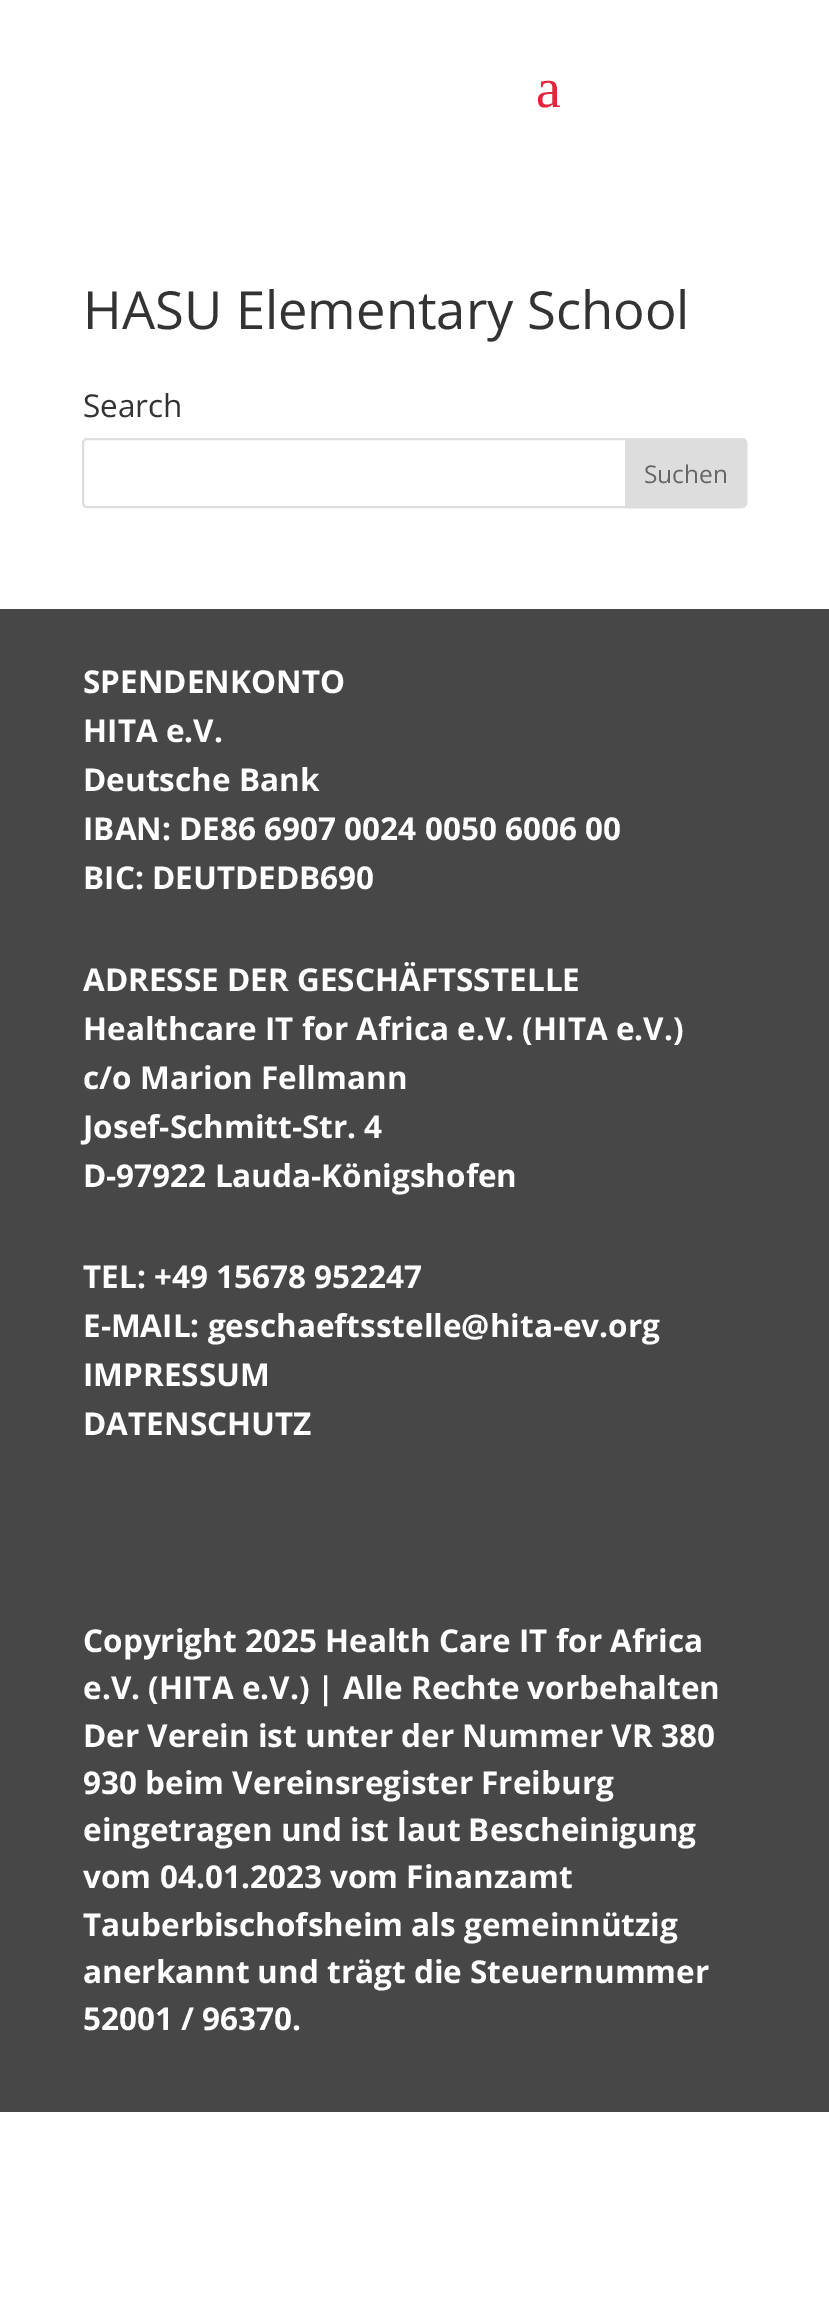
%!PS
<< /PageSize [829 2304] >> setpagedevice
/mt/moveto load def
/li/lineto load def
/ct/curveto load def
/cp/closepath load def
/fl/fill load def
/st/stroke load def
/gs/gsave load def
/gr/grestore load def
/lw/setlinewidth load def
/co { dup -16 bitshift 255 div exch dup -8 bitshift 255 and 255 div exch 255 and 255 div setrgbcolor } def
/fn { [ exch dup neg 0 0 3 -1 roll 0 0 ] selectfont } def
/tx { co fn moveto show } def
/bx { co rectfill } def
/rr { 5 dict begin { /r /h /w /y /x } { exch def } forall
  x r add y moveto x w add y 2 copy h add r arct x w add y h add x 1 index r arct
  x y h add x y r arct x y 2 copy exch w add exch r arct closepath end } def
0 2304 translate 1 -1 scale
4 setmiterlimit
0 0 829 2304 16#FFFFFF bx
16#DDDDDD co
2 lw
83 439 663 68 4 rr st
626 439 mt 742 439 li 744 439 746 441 746 443 ct 746 503 li 746 505 744 507 742 507 ct 626 507 li cp gs fl gr
st
0 609 829 1503 16#484747 bx
(a) 536 107 /LiberationSerif-Regular 56 16#E2263D tx
(HASU Elementary School) 83 329 /OpenSans-Regular 52.5 16#333333 tx
(Search) 83 417 /OpenSans-Regular 31.5 16#333333 tx
(Suchen) 644 483 /OpenSans-Regular 24.5 16#666666 tx
(SPENDENKONTO) 83 693 /OpenSans-Bold 31.5 16#FFFFFF tx
(HITA e.V.) 83 742 /OpenSans-Bold 31.5 16#FFFFFF tx
(Deutsche Bank) 83 791 /OpenSans-Bold 31.5 16#FFFFFF tx
(IBAN: DE86 6907 0024 0050 6006 00) 83 840 /OpenSans-Bold 31.5 16#FFFFFF tx
(BIC: DEUTDEDB690) 83 889 /OpenSans-Bold 31.5 16#FFFFFF tx
(ADRESSE DER GESCHÄFTSSTELLE) 83 991 /OpenSans-Bold 31.5 16#FFFFFF tx
(Healthcare IT for Africa e.V. \(HITA e.V.\)) 83 1040 /OpenSans-Bold 31.5 16#FFFFFF tx
(c/o Marion Fellmann) 83 1089 /OpenSans-Bold 31.5 16#FFFFFF tx
(Josef-Schmitt-Str. 4) 83 1138 /OpenSans-Bold 31.5 16#FFFFFF tx
(D-97922 Lauda-Königshofen) 83 1187 /OpenSans-Bold 31.5 16#FFFFFF tx
(TEL: +49 15678 952247) 83 1288 /OpenSans-Bold 31.5 16#FFFFFF tx
(E-MAIL: geschaeftsstelle@hita-ev.org) 83 1337 /OpenSans-Bold 31.5 16#FFFFFF tx
(IMPRESSUM) 83 1386 /OpenSans-Bold 31.5 16#FFFFFF tx
(DATENSCHUTZ) 83 1435 /OpenSans-Bold 31.5 16#FFFFFF tx
(Copyright 2025 Health Care IT for Africa) 83 1652 /OpenSans-Bold 31.5 16#FFFFFF tx
(e.V. \(HITA e.V.\) | Alle Rechte vorbehalten) 83 1699 /OpenSans-Bold 31.5 16#FFFFFF tx
(Der Verein ist unter der Nummer VR 380) 83 1747 /OpenSans-Bold 31.5 16#FFFFFF tx
(930 beim Vereinsregister Freiburg) 83 1794 /OpenSans-Bold 31.5 16#FFFFFF tx
(eingetragen und ist laut Bescheinigung) 83 1841 /OpenSans-Bold 31.5 16#FFFFFF tx
(vom 04.01.2023 vom Finanzamt) 83 1888 /OpenSans-Bold 31.5 16#FFFFFF tx
(Tauberbischofsheim als gemeinnützig) 83 1936 /OpenSans-Bold 31.5 16#FFFFFF tx
(anerkannt und trägt die Steuernummer) 83 1983 /OpenSans-Bold 31.5 16#FFFFFF tx
(52001 / 96370.) 83 2030 /OpenSans-Bold 31.5 16#FFFFFF tx
showpage
